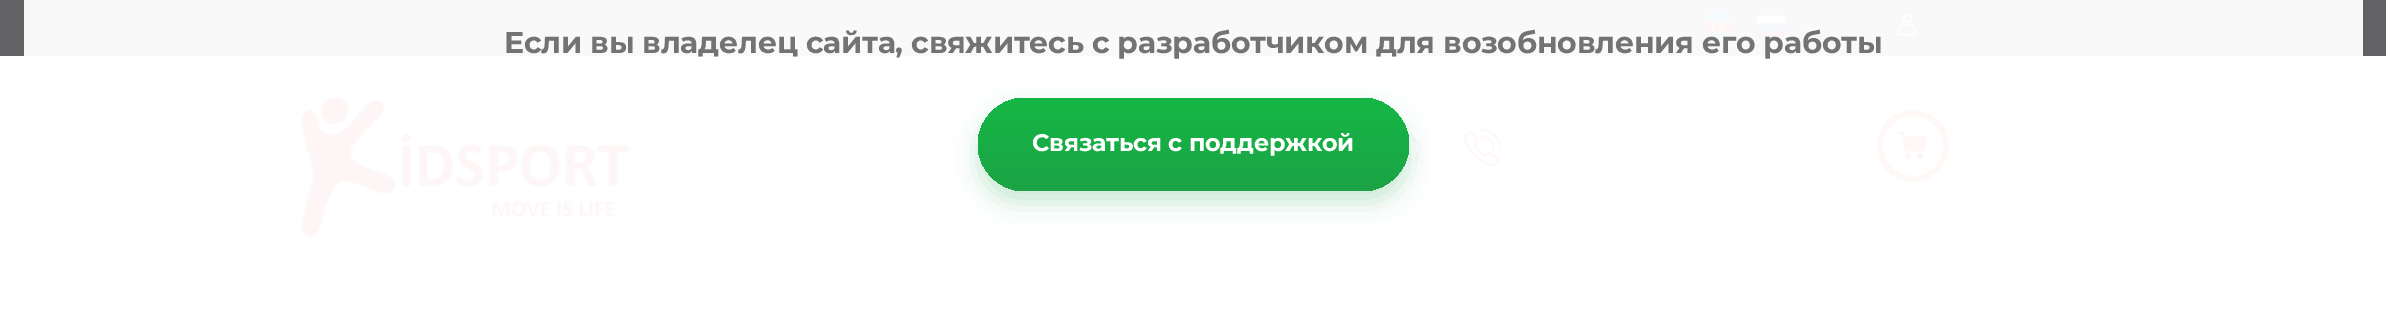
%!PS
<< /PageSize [2386 310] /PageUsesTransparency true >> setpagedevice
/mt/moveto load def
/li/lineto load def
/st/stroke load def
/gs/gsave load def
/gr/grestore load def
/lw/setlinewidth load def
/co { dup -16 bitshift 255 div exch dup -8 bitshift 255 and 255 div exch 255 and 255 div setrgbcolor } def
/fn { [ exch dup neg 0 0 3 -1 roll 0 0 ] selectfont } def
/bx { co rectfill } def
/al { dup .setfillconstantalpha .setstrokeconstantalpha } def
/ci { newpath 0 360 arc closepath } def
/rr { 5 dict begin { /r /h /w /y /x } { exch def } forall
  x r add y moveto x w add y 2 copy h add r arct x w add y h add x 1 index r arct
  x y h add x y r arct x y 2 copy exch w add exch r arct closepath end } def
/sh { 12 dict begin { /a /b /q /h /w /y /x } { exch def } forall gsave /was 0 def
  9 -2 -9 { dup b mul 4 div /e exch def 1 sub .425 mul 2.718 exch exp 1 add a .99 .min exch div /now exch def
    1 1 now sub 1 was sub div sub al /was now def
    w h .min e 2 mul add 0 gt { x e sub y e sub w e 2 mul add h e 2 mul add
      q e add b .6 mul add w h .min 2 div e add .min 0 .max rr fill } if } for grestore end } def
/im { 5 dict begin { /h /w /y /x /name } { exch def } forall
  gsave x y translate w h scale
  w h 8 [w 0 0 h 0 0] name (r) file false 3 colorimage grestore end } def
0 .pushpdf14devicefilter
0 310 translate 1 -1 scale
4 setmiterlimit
0 0 2386 310 16#FFFFFF bx
0 0 2386 56 16#626264 bx
24 0 2339 56 16#F9F9F9 bx
16#FFFFFF co
1.4 lw
1819 25.5 mt 1813 31.5 li 1806.5 25.5 li st
(media/1.raw) 1701 10 33 34 im
(media/2.raw) 1755 15 33 26 im
(media/3.raw) 1897 14 20 22 im
(media/4.raw) 298 93 331 149 im
16#FBFBFD co
2.4 lw
1409 149 11 ci st
1 setlinecap
1 setlinejoin
1425 165 mt 1417 157 li st
(media/5.raw) 1464 129 38 38 im
16#FEF8F6 co
6 lw
0 setlinecap
0 setlinejoin
1913 146 33 ci st
(media/6.raw) 1897 131 31 29 im
16#1CA345 co
978 110 431 93 46.5 12 .24 sh
gs 978 98 431 93 46.5 rr clip newpath
<< /ShadingType 2 /ColorSpace /DeviceRGB /Coords [1193 97 1193 191] /Extend [true true] /Function << /FunctionType 2 /Domain [0 1] /C0 [.082 .718 .275] /C1 [.11 .639 .271] /N 1 >> >> shfill gr
/Montserrat-Bold 30 fn
16#737373 co
504 53 mt -.3 0 (Если вы владелец сайта, свяжитесь с разработчиком для возобновления его работы) ashow
/Montserrat-Bold 24 fn
16#FFFFFF co
1032 151 mt -.25 0 (Связаться с поддержкой) ashow
.poppdf14devicefilter showpage
